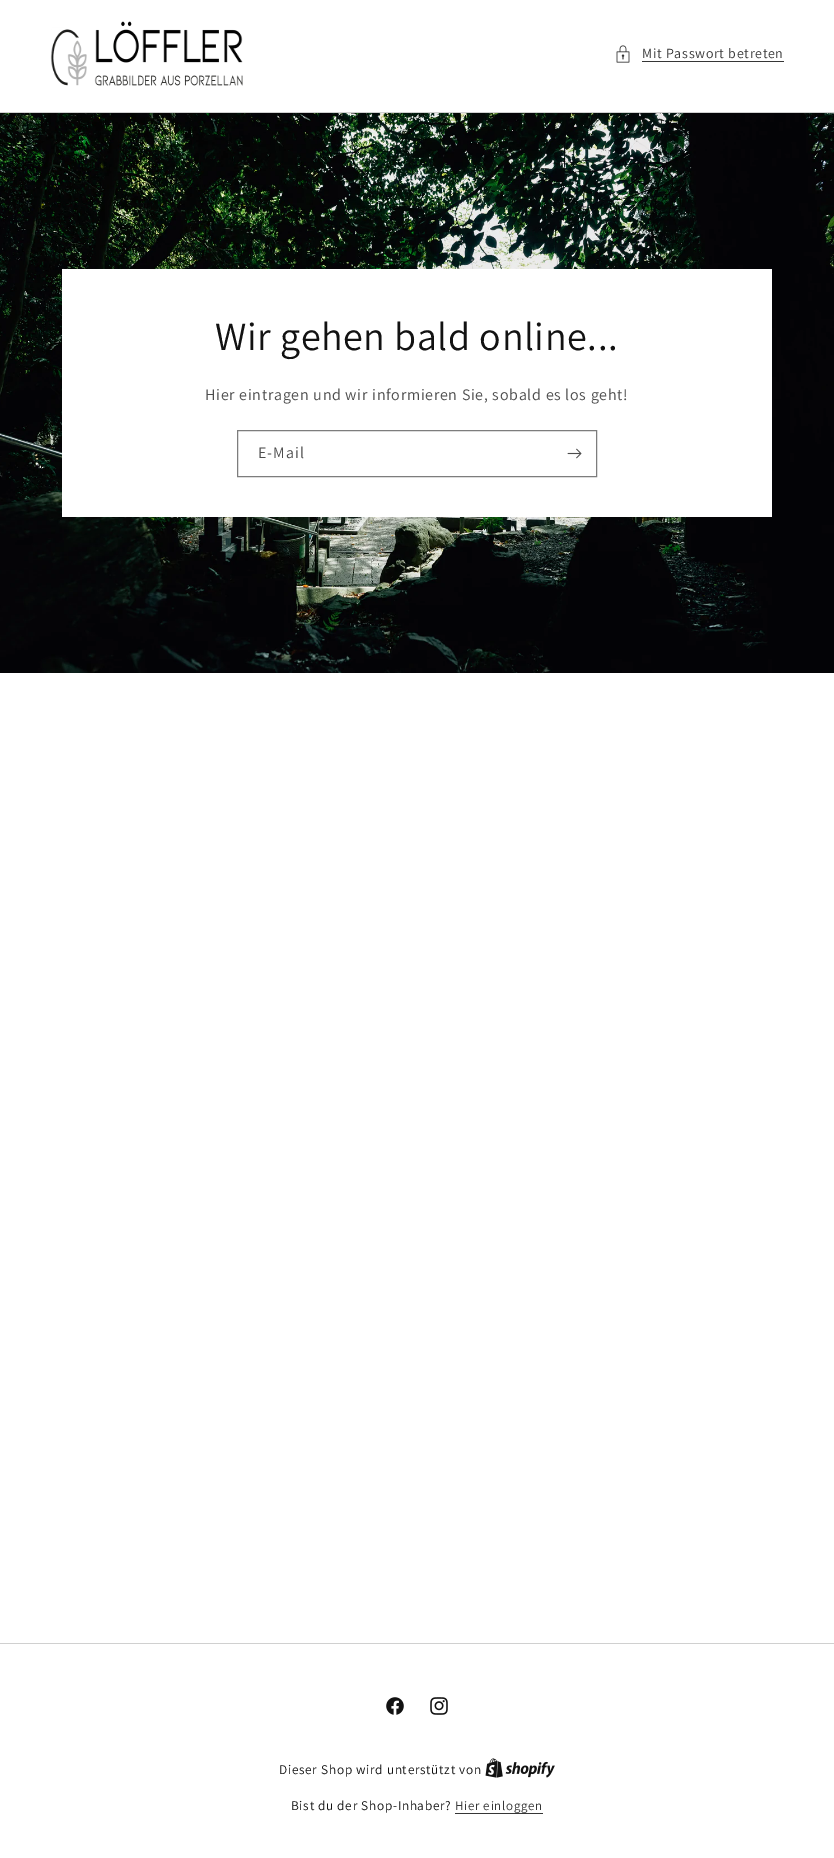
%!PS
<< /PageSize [834 1858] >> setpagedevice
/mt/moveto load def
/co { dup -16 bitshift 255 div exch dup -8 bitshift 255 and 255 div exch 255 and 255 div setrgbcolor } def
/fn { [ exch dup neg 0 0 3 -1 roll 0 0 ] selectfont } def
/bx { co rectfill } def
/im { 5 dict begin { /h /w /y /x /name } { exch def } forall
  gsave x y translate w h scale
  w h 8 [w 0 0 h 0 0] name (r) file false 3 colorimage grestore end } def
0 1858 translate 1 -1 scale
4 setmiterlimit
0 0 834 1858 16#FFFFFF bx
(media/1.raw) 50 21 193 65 im
(media/2.raw) 616 45 14 18 im
642 61 142 1 16#363636 bx
0 112 834 1 16#D0D0D0 bx
(media/3.raw) 0 113 834 560 im
62 269 710 248 16#FFFFFF bx
16#7D7D7D co
237.5 430.5 359 46 rectstroke
(media/4.raw) 567 448 15 11 im
0 1643 834 1 16#D0D0D0 bx
(media/5.raw) 386 1697 18 18 im
(media/6.raw) 430 1697 18 18 im
(media/7.raw) 485 1758 70 20 im
455 1813 88 1 16#363636 bx
/Assistant-Regular 14 fn
642 58 mt .7 0 (Mit Passwort betreten) ashow
/Assistant-Regular 40 fn
16#121212 co
215 350 mt .6 0 (Wir gehen bald online...) ashow
/Assistant-Regular 16 fn
16#4D4D4D co
205 400 mt .7 0 (Hier eintragen und wir informieren Sie, sobald es los geht!) ashow
258 458 mt 1 0 (E-Mail) ashow
/Assistant-Regular 13.3 fn
16#121212 co
279 1774 mt .7 0 (Dieser Shop wird unterstützt von) ashow
291 1810 mt .7 0 (Bist du der Shop-Inhaber?) ashow
/Assistant-Regular 13 fn
16#363636 co
455 1810 mt .7 0 (Hier einloggen) ashow
showpage
